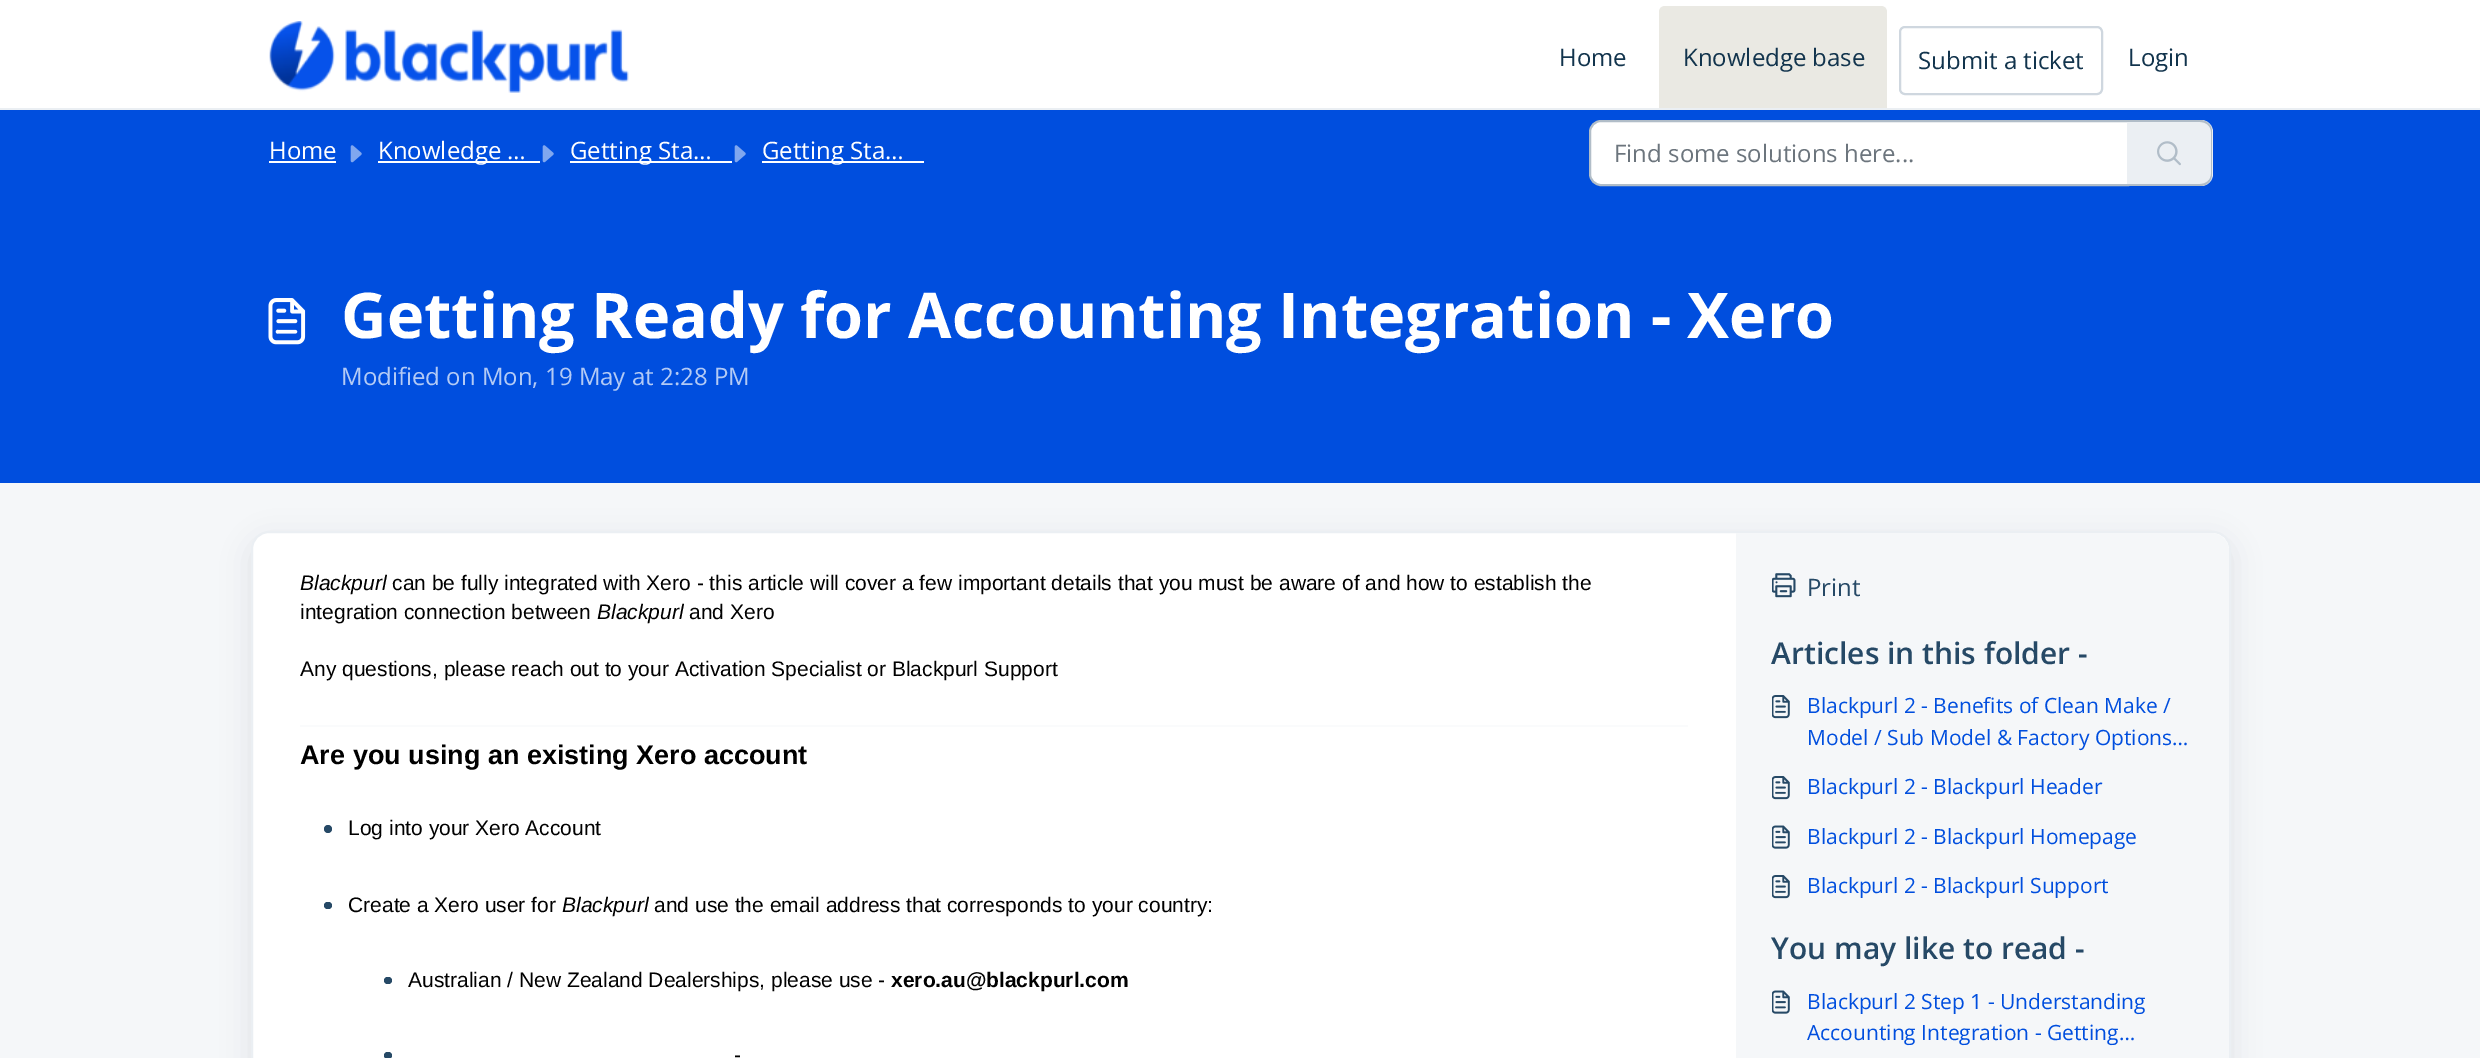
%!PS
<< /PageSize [2480 1058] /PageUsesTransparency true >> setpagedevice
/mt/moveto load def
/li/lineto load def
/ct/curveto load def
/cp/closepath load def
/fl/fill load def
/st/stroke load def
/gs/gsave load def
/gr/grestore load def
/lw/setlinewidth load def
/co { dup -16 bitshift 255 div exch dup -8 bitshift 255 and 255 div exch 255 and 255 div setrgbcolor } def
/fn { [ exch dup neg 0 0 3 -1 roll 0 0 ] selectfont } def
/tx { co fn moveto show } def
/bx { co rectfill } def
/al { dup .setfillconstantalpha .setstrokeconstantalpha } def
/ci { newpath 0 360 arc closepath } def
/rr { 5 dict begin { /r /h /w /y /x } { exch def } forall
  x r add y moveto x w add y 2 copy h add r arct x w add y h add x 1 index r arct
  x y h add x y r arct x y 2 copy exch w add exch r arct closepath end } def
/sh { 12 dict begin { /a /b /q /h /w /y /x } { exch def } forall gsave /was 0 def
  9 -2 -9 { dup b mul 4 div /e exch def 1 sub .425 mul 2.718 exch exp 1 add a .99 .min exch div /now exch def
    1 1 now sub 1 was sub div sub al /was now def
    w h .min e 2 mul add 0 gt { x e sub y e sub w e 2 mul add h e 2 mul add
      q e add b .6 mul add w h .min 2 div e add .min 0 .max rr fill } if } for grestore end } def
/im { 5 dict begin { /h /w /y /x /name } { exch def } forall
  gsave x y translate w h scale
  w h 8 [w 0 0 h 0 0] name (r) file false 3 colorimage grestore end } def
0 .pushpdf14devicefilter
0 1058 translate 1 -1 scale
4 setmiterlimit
0 0 2480 1058 16#F5F7F9 bx
0 0 2480 108 16#FFFFFF bx
0 108 2480 2 16#EBEFF3 bx
(media/1.raw) 269 21 360 72 im
16#EAE9E3 co
1665 6 mt 1881 6 li 1884.5 6 1887 8.5 1887 12 ct 1887 108 li 1659 108 li 1659 12 li 1659 8.5 1661.5 6 1665 6 ct cp fl
16#CFD7DF co
2 lw
1900 27 202 67 5 rr st
0 110 2480 373 16#004EDE bx
269 161 67 2 16#FFFFFF bx
(media/2.raw) 350 145 12 18 im
378 161 162 2 16#FFFFFF bx
(media/2.raw) 542 145 12 18 im
570 161 162 2 16#FFFFFF bx
(media/2.raw) 734 145 12 18 im
762 161 162 2 16#FFFFFF bx
1601 121 mt 2128 121 li 2128 185 li 1601 185 li 1595 185 1590 180 1590 174 ct 1590 132 li 1590 126 1595 121 1601 121 ct cp gs fl gr
16#B1BDC8 co
st
16#EBEFF3 co
2127 120 mt 2201 120 li 2207.5 120 2213 125.5 2213 132 ct 2213 174 li 2213 180.5 2207.5 186 2201 186 ct 2127 186 li cp fl
16#B1BDC8 co
2127 120 mt 2200 120 li 2207 120 2212 125 2212 132 ct 2212 174 li 2212 181 2207 186 2200 186 ct 2127 186 li cp 2127 122 mt 2200 122 li 2206 122 2211 126 2211 132 ct 2211 174 li 2211 180 2206 184 2200 184 ct 2127 184 li cp eofill
(media/3.raw) 2157 141 24 25 im
(media/4.raw) 268 298 38 47 im
16#27313A co
251 540 1980 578 18 14 .1 sh
16#FFFFFF co
252 532 1978 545 17 rr gs fl gr
16#EBEFF3 co
st
300 725 1388 2 16#FAFBFC bx
16#264966 co
328 829 4 ci fl
324 902 8 7 3.5 rr fl
384 977 8 7 3.5 rr fl
384 1052 8 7 3.5 rr fl
16#F5F7F9 co
1736 533 mt 2211 533 li 2221 533 2229 541 2229 551 ct 2229 1058 li 2229 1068 2221 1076 2211 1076 ct 1736 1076 li cp fl
(media/5.raw) 1772 573 24 25 im
(media/6.raw) 1772 695 18 24 im
(media/6.raw) 1772 776 18 24 im
(media/7.raw) 1772 825 18 24 im
(media/6.raw) 1772 875 18 24 im
(media/7.raw) 1772 990 18 24 im
(Home) 1559 66 /OpenSans-Regular 24 16#12344D tx
(Knowledge base) 1683 66 /OpenSans-Regular 24 16#12344D tx
(Submit a ticket) 1918 69 /OpenSans-Regular 24 16#12344D tx
(Login) 2128 66 /OpenSans-Regular 24 16#12344D tx
(Home) 269 159 /OpenSans-Regular 24 16#FFFFFF tx
(Knowledge …) 378 159 /OpenSans-Regular 24 16#FFFFFF tx
(Getting Sta…) 570 159 /OpenSans-Regular 24 16#FFFFFF tx
(Getting Sta…) 762 159 /OpenSans-Regular 24 16#FFFFFF tx
(Find some solutions here...) 1614 162 /OpenSans-Regular 24 16#6C757D tx
(Getting Ready for Accounting Integration - Xero) 341 338 /OpenSans-Bold 63 16#FFFFFF tx
(Modified on Mon, 19 May at 2:28 PM) 341 385 /OpenSans-Regular 24 16#B3CAF5 tx
(Blackpurl) 300 590 /LiberationSans-Italic 21 16#000000 tx
(can be fully integrated with Xero - this article will cover a few important details that you must be aware of and how to establish the) 392 590 /LiberationSans-Regular 21 16#000000 tx
(integration connection between) 300 619 /LiberationSans-Regular 21 16#000000 tx
(Blackpurl) 597 619 /LiberationSans-Italic 21 16#000000 tx
(and Xero) 689 619 /LiberationSans-Regular 21 16#000000 tx
(Any questions, please reach out to your Activation Specialist or Blackpurl Support) 300 676 /LiberationSans-Regular 21 16#000000 tx
(Are you using an existing Xero account) 300 764 /LiberationSans-Bold 27 16#000000 tx
(Log into your Xero Account) 348 835 /LiberationSans-Regular 21 16#000000 tx
(Create a Xero user for) 348 912 /LiberationSans-Regular 21 16#000000 tx
(Blackpurl) 562 912 /LiberationSans-Italic 21 16#000000 tx
(and use the email address that corresponds to your country:) 654 912 /LiberationSans-Regular 21 16#000000 tx
(Australian / New Zealand Dealerships, please use -) 408 987 /LiberationSans-Regular 21 16#000000 tx
(xero.au@blackpurl.com) 891 987 /LiberationSans-Bold 21 16#000000 tx
(-) 734 1062 /LiberationSans-Regular 21 16#000000 tx
(Print) 1807 596 /OpenSans-Regular 24 16#264966 tx
(Articles in this folder -) 1771 664 /OpenSans-SemiBold 30 16#264966 tx
(Blackpurl 2 - Benefits of Clean Make /) 1807 713 /OpenSans-Regular 21 16#004EDE tx
(Model / Sub Model & Factory Options…) 1807 745 /OpenSans-Regular 21 16#004EDE tx
(Blackpurl 2 - Blackpurl Header) 1807 794 /OpenSans-Regular 21 16#004EDE tx
(Blackpurl 2 - Blackpurl Homepage) 1807 844 /OpenSans-Regular 21 16#004EDE tx
(Blackpurl 2 - Blackpurl Support) 1807 893 /OpenSans-Regular 21 16#004EDE tx
(You may like to read -) 1771 959 /OpenSans-SemiBold 30 16#264966 tx
(Blackpurl 2 Step 1 - Understanding) 1807 1009 /OpenSans-Regular 21 16#004EDE tx
(Accounting Integration - Getting…) 1807 1040 /OpenSans-Regular 21 16#004EDE tx
.poppdf14devicefilter showpage
